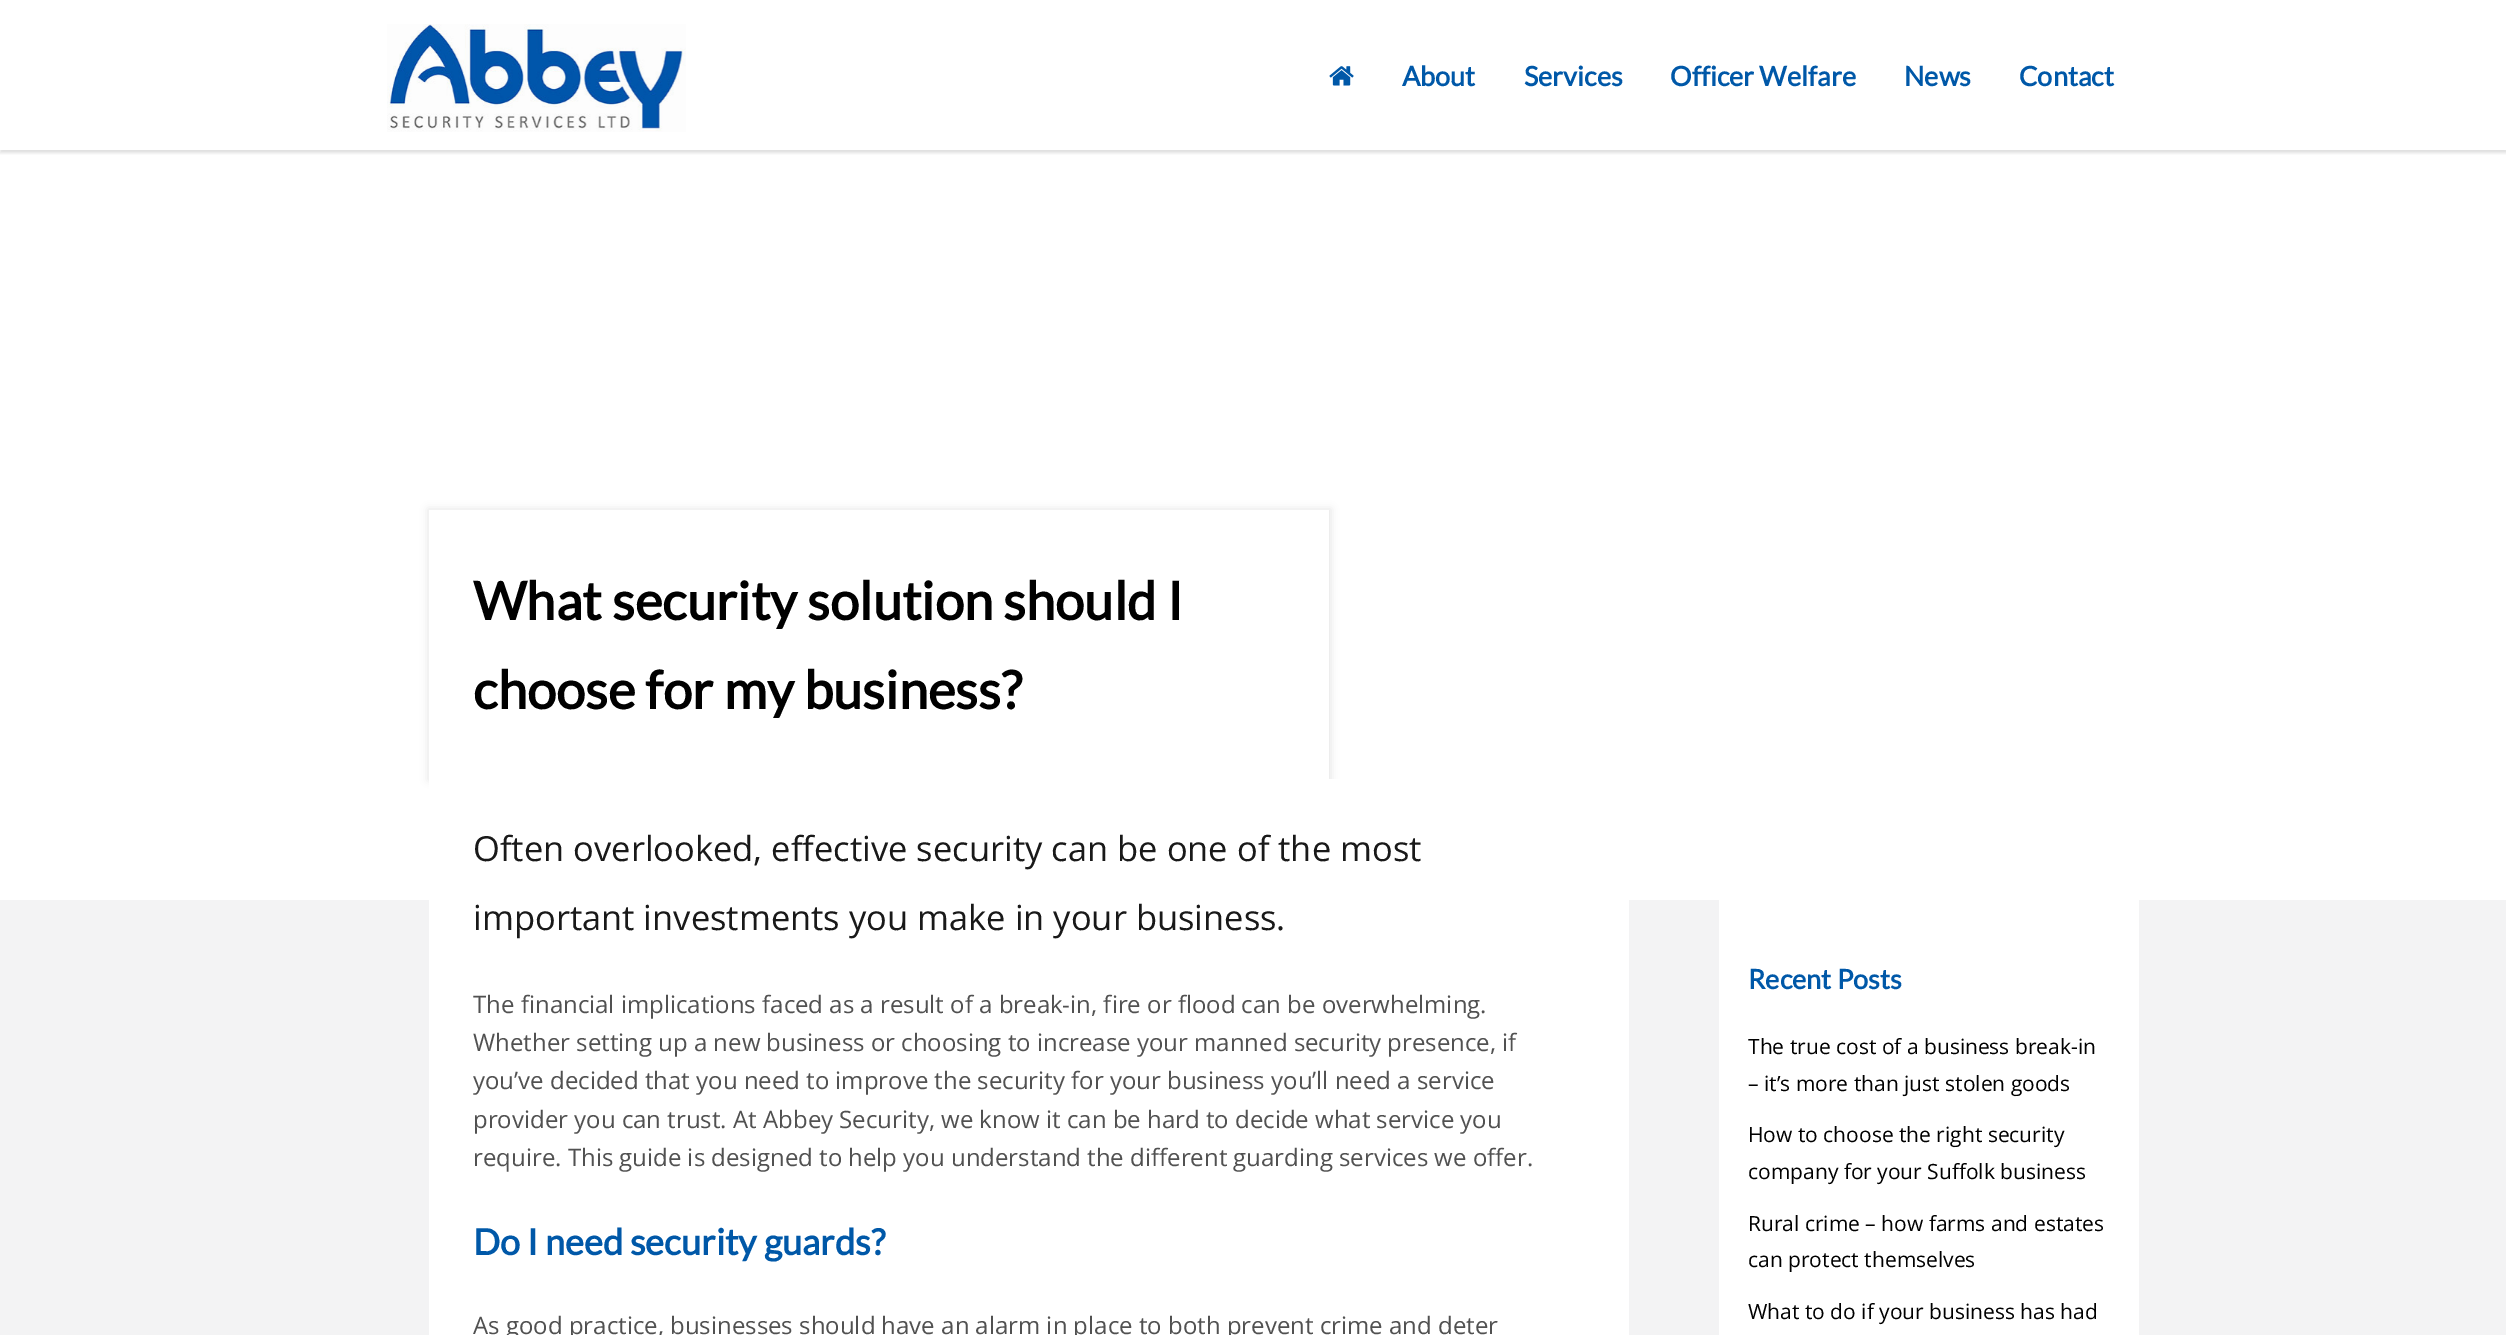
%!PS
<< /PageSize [2506 1335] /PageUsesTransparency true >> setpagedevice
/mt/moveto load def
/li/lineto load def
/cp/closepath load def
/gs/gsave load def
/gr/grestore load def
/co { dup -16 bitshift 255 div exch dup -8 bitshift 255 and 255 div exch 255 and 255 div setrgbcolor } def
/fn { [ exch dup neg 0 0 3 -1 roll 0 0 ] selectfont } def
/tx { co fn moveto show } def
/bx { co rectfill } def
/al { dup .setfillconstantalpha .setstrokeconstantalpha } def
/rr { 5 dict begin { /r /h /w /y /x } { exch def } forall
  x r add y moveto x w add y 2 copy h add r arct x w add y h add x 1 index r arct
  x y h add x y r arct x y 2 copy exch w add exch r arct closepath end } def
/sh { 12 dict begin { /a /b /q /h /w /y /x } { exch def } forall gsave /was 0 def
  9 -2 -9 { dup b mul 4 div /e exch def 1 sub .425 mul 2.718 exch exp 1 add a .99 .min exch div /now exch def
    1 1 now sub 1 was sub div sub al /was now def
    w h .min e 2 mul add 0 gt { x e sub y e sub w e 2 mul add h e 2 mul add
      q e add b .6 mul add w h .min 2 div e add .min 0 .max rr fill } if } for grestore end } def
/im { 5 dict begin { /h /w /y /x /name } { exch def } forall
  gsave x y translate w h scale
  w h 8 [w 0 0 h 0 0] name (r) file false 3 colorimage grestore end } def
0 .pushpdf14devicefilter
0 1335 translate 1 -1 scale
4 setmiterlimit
0 0 2506 1335 16#FFFFFF bx
gs
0 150 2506 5 rectclip
16#646464 co
0 3 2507 150 0 1.5 .2 sh
gr
(media/1.raw) 387 24 299 108 im
(media/2.raw) 1329 66 25 20 im
0 900 2506 435 16#F3F3F4 bx
gs
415 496 mt 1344 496 li 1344 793 li 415 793 li cp 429 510 mt 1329 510 li 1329 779 li 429 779 li cp eoclip newpath
16#000000 co
428 509 903 271 0 4 .1 sh
gr
0.8 al
429 778 900 1 16#FFFFFF bx
1 al
429 779 1200 556 16#FFFFFF bx
1719 900 420 435 16#FFFFFF bx
(About) 1402 86 /Lato-Bold 27 16#0058A8 tx
(Services) 1524 86 /Lato-Bold 27 16#0058A8 tx
(Officer Welfare) 1670 86 /Lato-Bold 27 16#0058A8 tx
(News) 1904 86 /Lato-Bold 27 16#0058A8 tx
(Contact) 2019 86 /Lato-Bold 27 16#0058A8 tx
(What security solution should I) 473 620 /Lato-Bold 52.5 16#000000 tx
(choose for my business?) 473 709 /Lato-Bold 52.5 16#000000 tx
(Often overlooked, effective security can be one of the most) 473 861 /OpenSans-Regular 34.5 16#191919 tx
(important investments you make in your business.) 473 930 /OpenSans-Regular 34.5 16#191919 tx
(The financial implications faced as a result of a break-in, fire or flood can be overwhelming.) 473 1013 /OpenSans-Regular 24 16#515151 tx
(Whether setting up a new business or choosing to increase your manned security presence, if) 473 1051 /OpenSans-Regular 24 16#515151 tx
(you’ve decided that you need to improve the security for your business you’ll need a service) 473 1089 /OpenSans-Regular 24 16#515151 tx
(provider you can trust. At Abbey Security, we know it can be hard to decide what service you) 473 1128 /OpenSans-Regular 24 16#515151 tx
(require. This guide is designed to help you understand the different guarding services we offer.) 473 1166 /OpenSans-Regular 24 16#515151 tx
(Do I need security guards?) 473 1255 /Lato-Bold 36 16#0058A8 tx
(As good practice, businesses should have an alarm in place to both prevent crime and deter) 473 1334 /OpenSans-Regular 24 16#515151 tx
(Recent Posts) 1748 989 /Lato-Bold 27 16#0058A8 tx
(The true cost of a business break-in) 1748 1054 /OpenSans-Regular 21 16#000000 tx
(– it’s more than just stolen goods) 1748 1091 /OpenSans-Regular 21 16#000000 tx
(How to choose the right security) 1748 1142 /OpenSans-Regular 21 16#000000 tx
(company for your Suffolk business) 1748 1179 /OpenSans-Regular 21 16#000000 tx
(Rural crime – how farms and estates) 1748 1231 /OpenSans-Regular 21 16#000000 tx
(can protect themselves) 1748 1267 /OpenSans-Regular 21 16#000000 tx
(What to do if your business has had) 1748 1319 /OpenSans-Regular 21 16#000000 tx
.poppdf14devicefilter showpage
